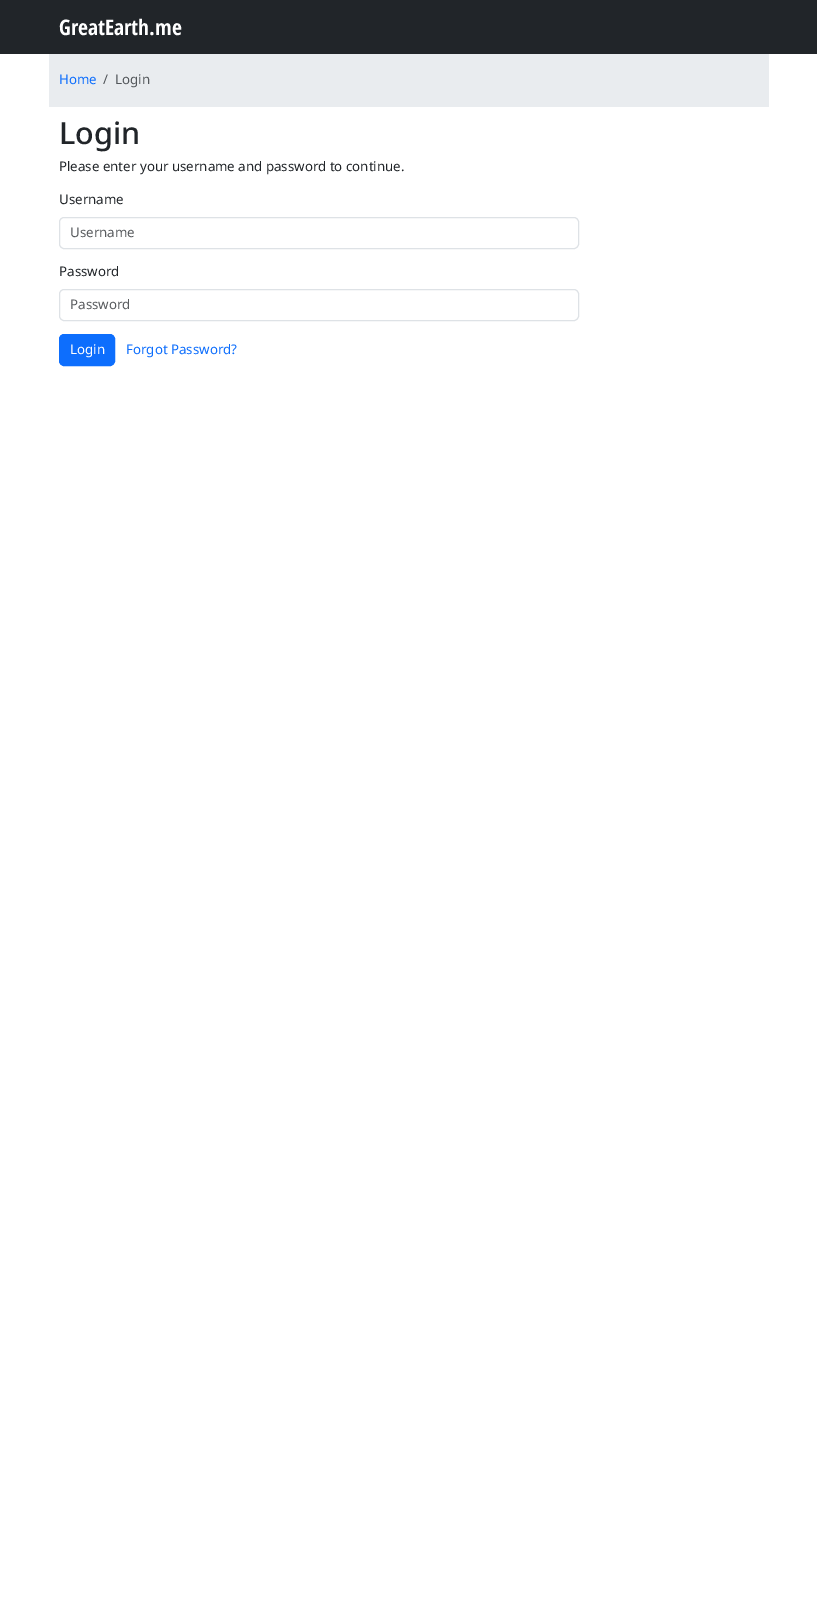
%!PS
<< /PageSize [817 1599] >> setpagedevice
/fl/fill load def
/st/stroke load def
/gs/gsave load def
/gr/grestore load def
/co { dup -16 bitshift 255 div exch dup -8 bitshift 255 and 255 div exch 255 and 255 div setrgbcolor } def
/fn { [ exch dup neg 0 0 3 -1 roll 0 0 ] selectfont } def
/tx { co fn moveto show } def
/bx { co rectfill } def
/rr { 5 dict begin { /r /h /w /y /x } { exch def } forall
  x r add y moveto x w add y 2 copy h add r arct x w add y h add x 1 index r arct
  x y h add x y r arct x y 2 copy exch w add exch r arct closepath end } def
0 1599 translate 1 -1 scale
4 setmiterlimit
0 0 817 1599 16#FFFFFF bx
0 0 817 54 16#212529 bx
49 54 720 53 16#E9ECEF bx
16#DEE2E6 co
59.5 217.5 519 31 4.5 rr st
59.5 289.5 519 31 4.5 rr st
16#0D6EFD co
59.5 334.5 55 31 4.5 rr gs fl gr
st
(GreatEarth.me) 59 35 /OpenSansCondensed-Bold 21.5 16#FFFFFF tx
(Home) 59 84 /NotoSans-Regular 13.3 16#0D6EFD tx
(/) 103 84 /NotoSans-Regular 13.3 16#53575B tx
(Login) 115 84 /NotoSans-Regular 13.3 16#53575B tx
(Login) 59 144 /NotoSans-Medium 30.5 16#212529 tx
(Please enter your username and password to continue.) 59 171 /NotoSans-Regular 13.3 16#212529 tx
(Username) 59 204 /NotoSans-Regular 13.3 16#212529 tx
(Username) 70 237 /NotoSans-Regular 13.3 16#595C5F tx
(Password) 59 276 /NotoSans-Regular 13.3 16#212529 tx
(Password) 70 309 /NotoSans-Regular 13.3 16#595C5F tx
(Login) 70 354 /NotoSans-Regular 13.3 16#FFFFFF tx
(Forgot Password?) 126 354 /NotoSans-Regular 13.3 16#0D6EFD tx
showpage
